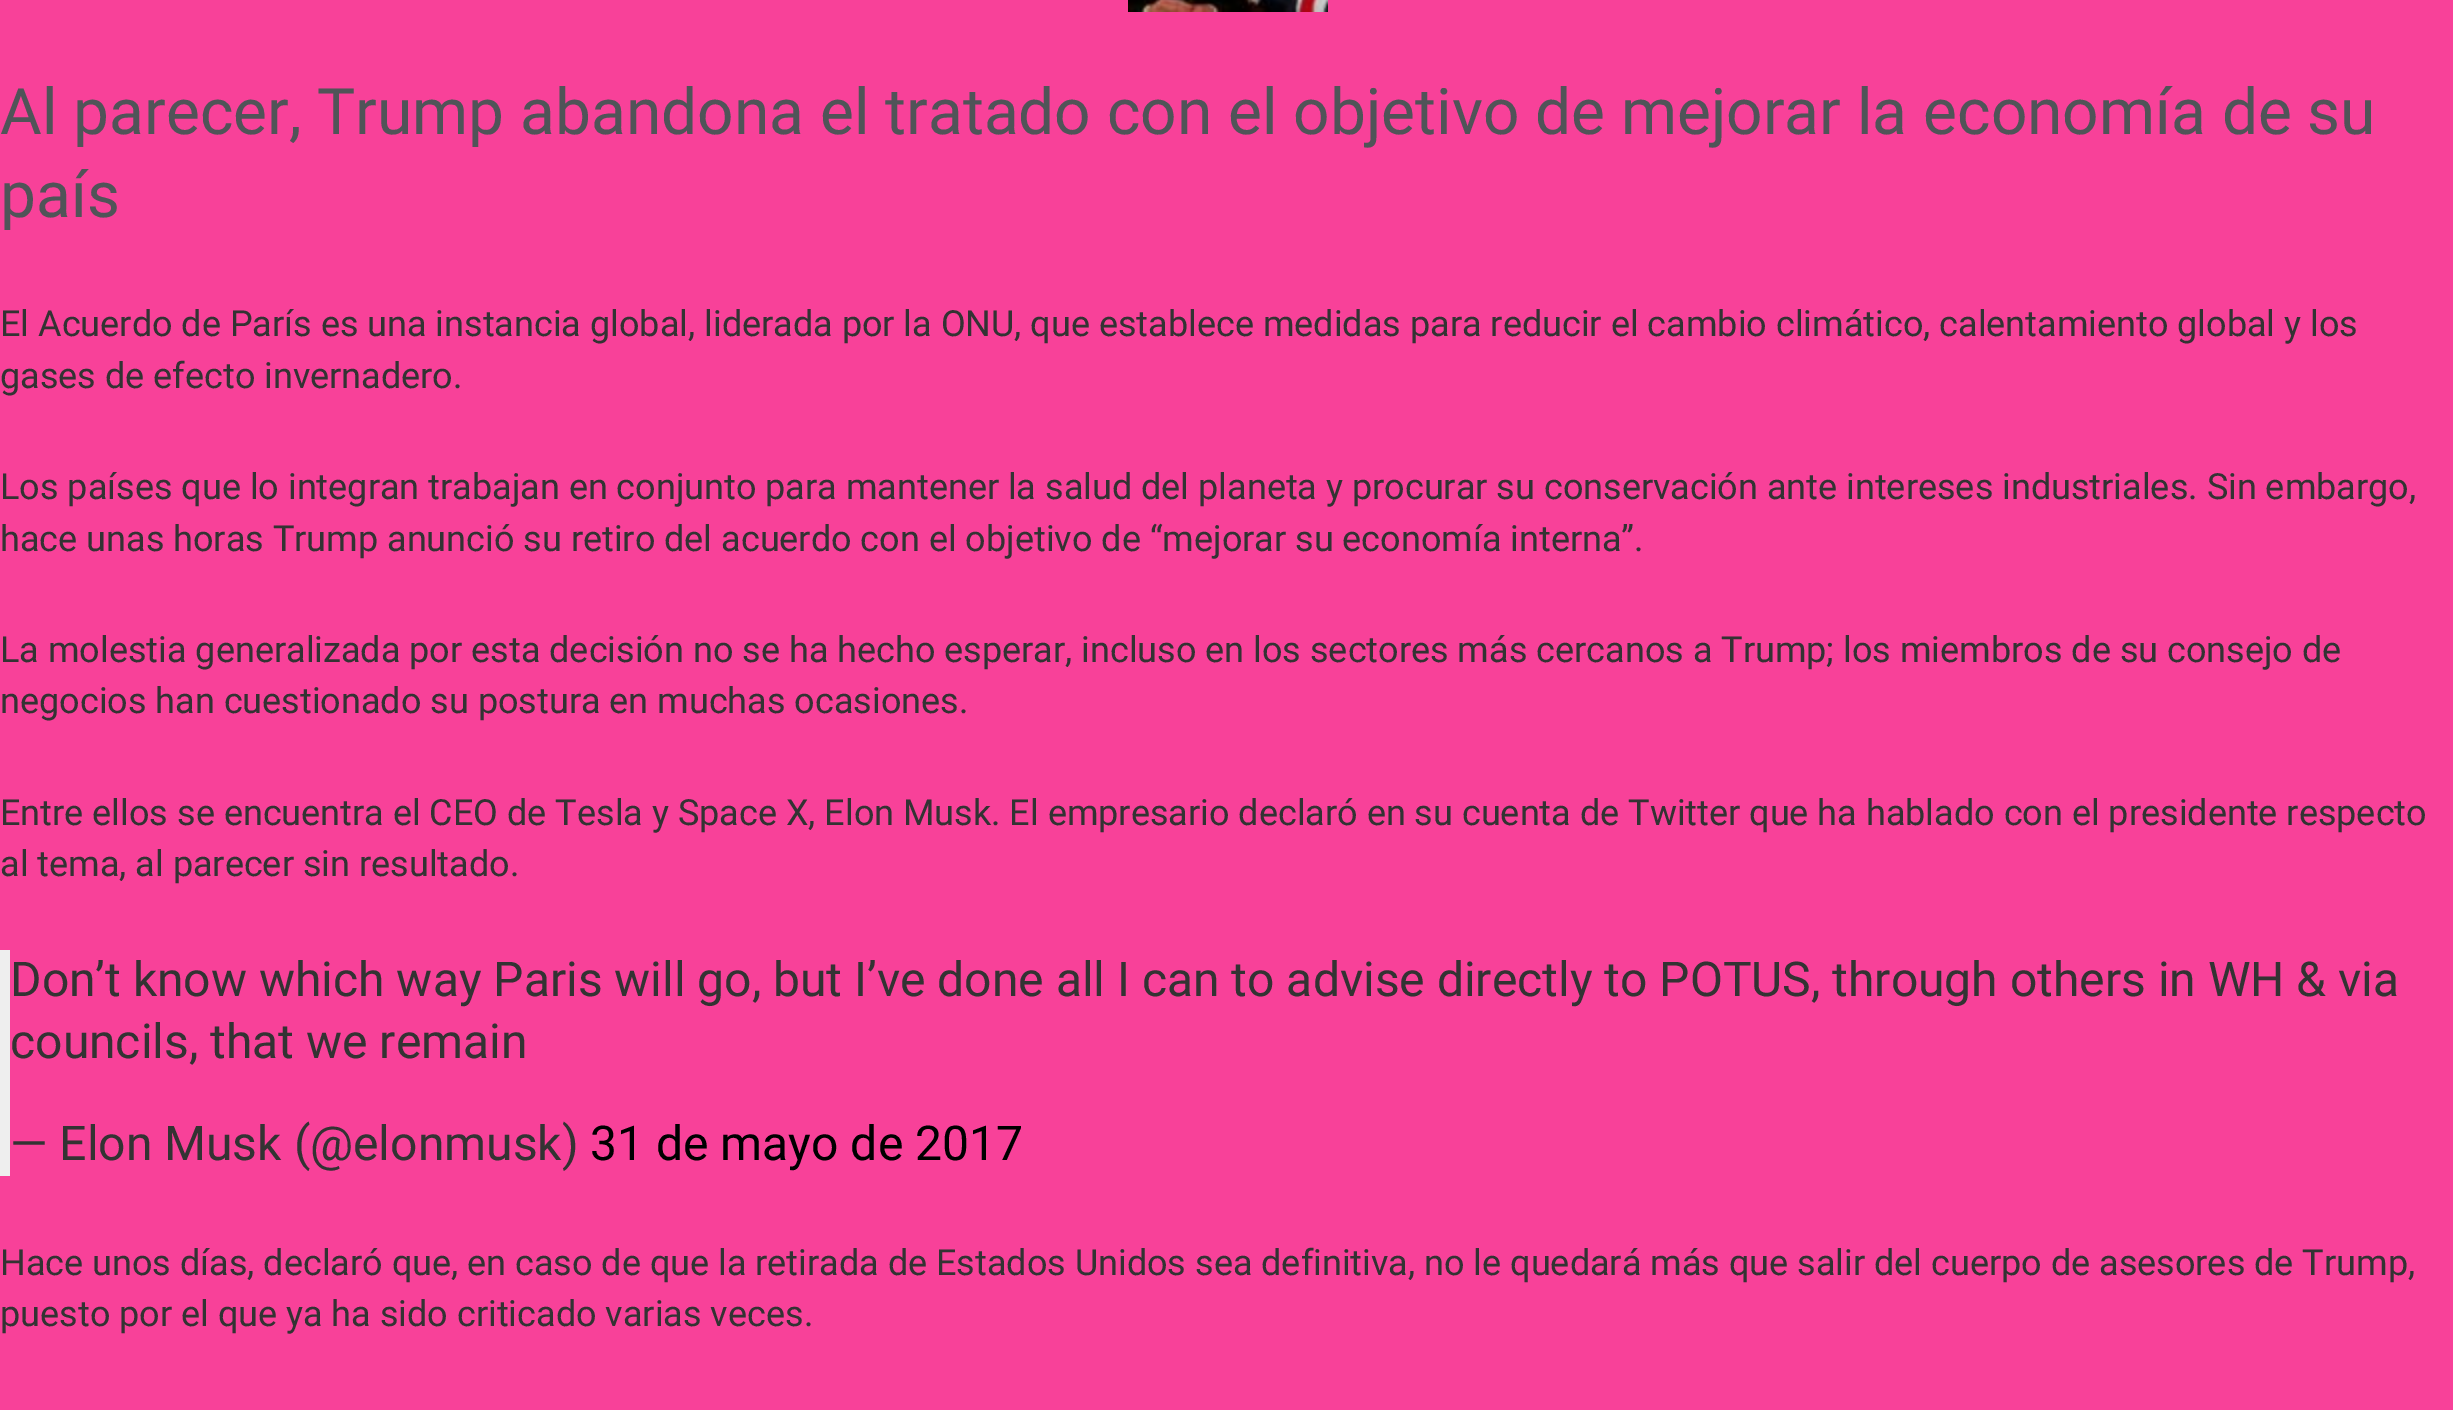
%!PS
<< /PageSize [2453 1410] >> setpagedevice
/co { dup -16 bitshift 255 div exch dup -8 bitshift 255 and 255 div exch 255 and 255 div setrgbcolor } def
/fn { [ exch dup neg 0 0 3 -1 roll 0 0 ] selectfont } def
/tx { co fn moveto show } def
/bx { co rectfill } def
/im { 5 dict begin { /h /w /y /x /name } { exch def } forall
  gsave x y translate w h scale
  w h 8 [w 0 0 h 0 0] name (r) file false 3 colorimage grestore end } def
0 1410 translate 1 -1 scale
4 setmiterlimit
0 0 2453 1410 16#F84199 bx
(media/1.raw) 1128 0 200 12 im
0 950 10 226 16#EEEEEE bx
(Al parecer, Trump abandona el tratado con el objetivo de mejorar la economía de su) 0 134 /Roboto-Regular 64 16#505458 tx
(país) 0 217 /Roboto-Regular 64 16#505458 tx
(El Acuerdo de París es una instancia global, liderada por la ONU, que establece medidas para reducir el cambio climático, calentamiento global y los) 0 336 /Roboto-Regular 36 16#333333 tx
(gases de efecto invernadero.) 0 388 /Roboto-Regular 36 16#333333 tx
(Los países que lo integran trabajan en conjunto para mantener la salud del planeta y procurar su conservación ante intereses industriales. Sin embargo,) 0 499 /Roboto-Regular 36 16#333333 tx
(hace unas horas Trump anunció su retiro del acuerdo con el objetivo de “mejorar su economía interna”.) 0 551 /Roboto-Regular 36 16#333333 tx
(La molestia generalizada por esta decisión no se ha hecho esperar, incluso en los sectores más cercanos a Trump; los miembros de su consejo de) 0 662 /Roboto-Regular 36 16#333333 tx
(negocios han cuestionado su postura en muchas ocasiones.) 0 713 /Roboto-Regular 36 16#333333 tx
(Entre ellos se encuentra el CEO de Tesla y Space X, Elon Musk. El empresario declaró en su cuenta de Twitter que ha hablado con el presidente respecto) 0 825 /Roboto-Regular 36 16#333333 tx
(al tema, al parecer sin resultado.) 0 876 /Roboto-Regular 36 16#333333 tx
(Don’t know which way Paris will go, but I’ve done all I can to advise directly to POTUS, through others in WH & via) 10 996 /Roboto-Regular 48 16#333333 tx
(councils, that we remain) 10 1058 /Roboto-Regular 48 16#333333 tx
(— Elon Musk \(@elonmusk\)) 10 1160 /Roboto-Regular 48 16#333333 tx
(31 de mayo de 2017) 590 1160 /Roboto-Regular 48 16#000000 tx
(Hace unos días, declaró que, en caso de que la retirada de Estados Unidos sea definitiva, no le quedará más que salir del cuerpo de asesores de Trump,) 0 1275 /Roboto-Regular 36 16#333333 tx
(puesto por el que ya ha sido criticado varias veces.) 0 1326 /Roboto-Regular 36 16#333333 tx
showpage
